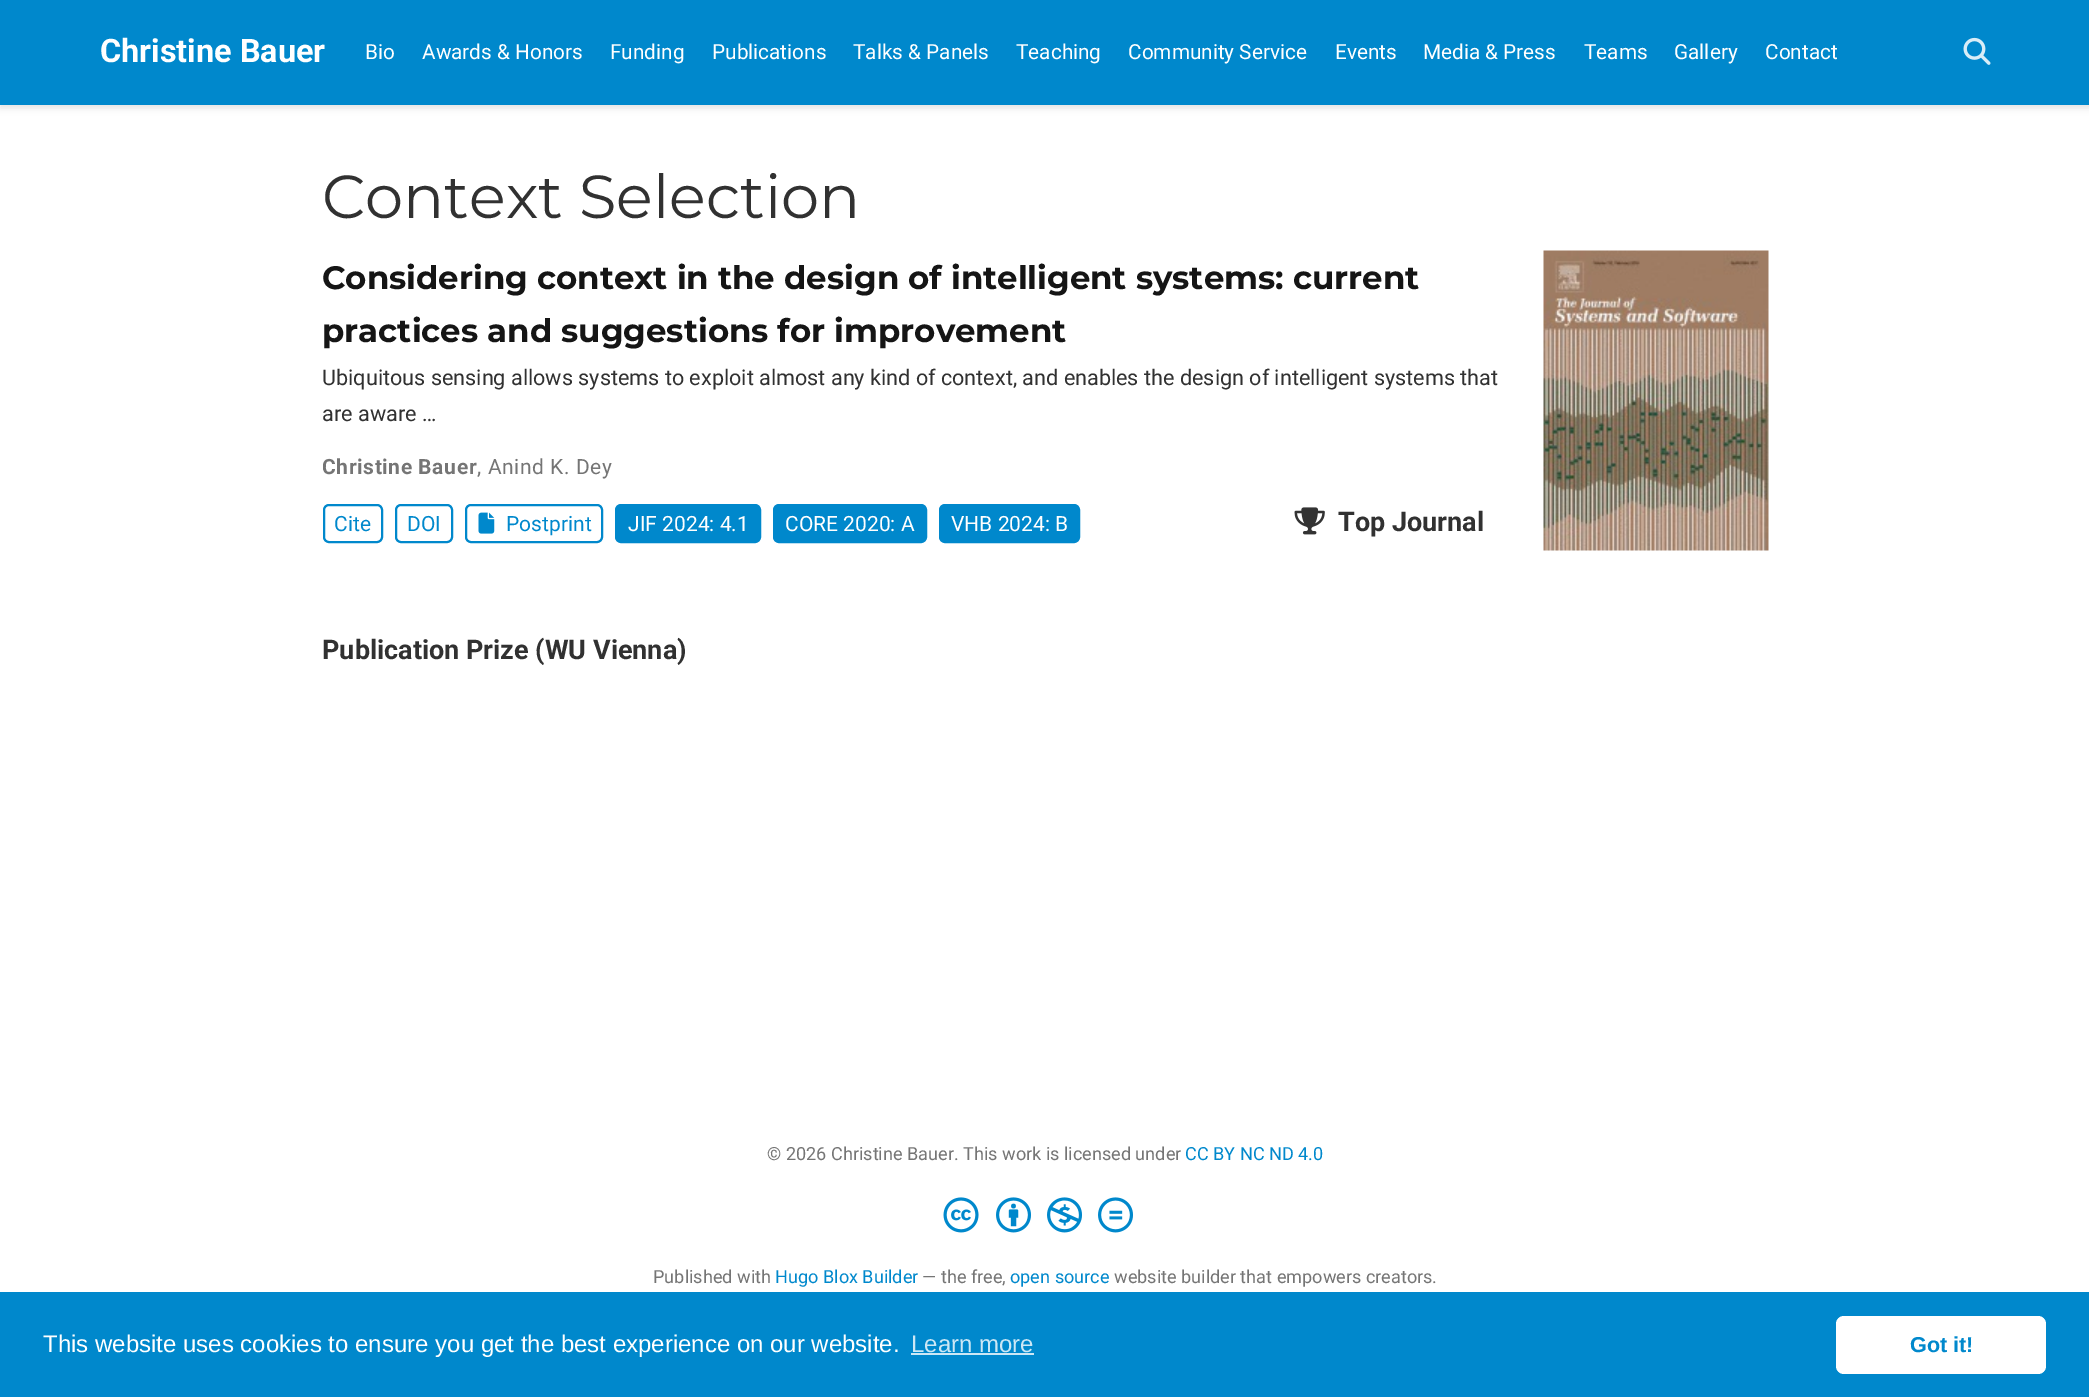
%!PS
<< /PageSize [2089 1397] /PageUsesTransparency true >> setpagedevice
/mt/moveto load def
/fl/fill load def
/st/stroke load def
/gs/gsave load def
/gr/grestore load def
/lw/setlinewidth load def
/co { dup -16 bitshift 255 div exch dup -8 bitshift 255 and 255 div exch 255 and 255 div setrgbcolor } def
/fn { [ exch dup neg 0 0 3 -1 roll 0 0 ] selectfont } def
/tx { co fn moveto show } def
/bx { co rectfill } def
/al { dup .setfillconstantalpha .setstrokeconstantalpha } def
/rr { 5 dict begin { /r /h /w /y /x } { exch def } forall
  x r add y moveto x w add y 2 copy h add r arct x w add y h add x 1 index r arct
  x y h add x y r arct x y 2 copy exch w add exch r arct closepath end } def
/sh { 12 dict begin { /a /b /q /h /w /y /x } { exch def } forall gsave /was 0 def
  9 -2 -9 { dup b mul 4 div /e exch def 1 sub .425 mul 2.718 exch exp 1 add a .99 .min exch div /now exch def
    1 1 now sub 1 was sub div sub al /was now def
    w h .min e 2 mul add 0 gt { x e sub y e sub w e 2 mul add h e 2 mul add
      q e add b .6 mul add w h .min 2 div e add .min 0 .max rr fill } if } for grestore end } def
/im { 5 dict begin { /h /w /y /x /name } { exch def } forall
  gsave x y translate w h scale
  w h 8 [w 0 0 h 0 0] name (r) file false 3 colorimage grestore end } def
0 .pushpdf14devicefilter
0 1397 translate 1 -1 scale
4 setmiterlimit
0 0 2089 1397 16#FFFFFF bx
16#000000 co
0 3 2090 105 0 3.5 .11 sh
0 0 2089 105 16#0088CC bx
(media/1.raw) 1963 37 28 28 im
2 lw
324 505 58 37 5 rr st
396 505 56 37 5 rr st
466 505 136 37 5 rr st
(media/2.raw) 478 512 17 22 im
616 505 144 37 5 rr gs fl gr
st
774 505 152 37 5 rr gs fl gr
st
940 505 139 37 5 rr gs fl gr
st
(media/3.raw) 1294 507 31 28 im
(media/4.raw) 1543 250 226 301 im
(media/5.raw) 943 1197 36 36 im
(media/6.raw) 996 1197 35 36 im
(media/7.raw) 1047 1197 35 36 im
(media/8.raw) 1098 1197 35 36 im
0 1292 2089 105 16#0088CC bx
911 1353 123 2 16#CCE7F5 bx
16#FFFFFF co
1836 1316 210 58 8 rr fl
(Christine Bauer) 100 62 /Roboto-Bold 32.4 16#FFFFFF tx
(Bio) 365 59 /Roboto-Regular 20.75 16#FFFFFF tx
(Awards & Honors) 422 59 /Roboto-Regular 20.75 16#FFFFFF tx
(Funding) 610 59 /Roboto-Regular 20.75 16#FFFFFF tx
(Publications) 712 59 /Roboto-Regular 20.75 16#FFFFFF tx
(Talks & Panels) 853 59 /Roboto-Regular 20.75 16#FFFFFF tx
(Teaching) 1016 59 /Roboto-Regular 20.75 16#FFFFFF tx
(Community Service) 1128 59 /Roboto-Regular 20.75 16#FFFFFF tx
(Events) 1335 59 /Roboto-Regular 20.75 16#FFFFFF tx
(Media & Press) 1423 59 /Roboto-Regular 20.75 16#FFFFFF tx
(Teams) 1584 59 /Roboto-Regular 20.75 16#FFFFFF tx
(Gallery) 1674 59 /Roboto-Regular 20.75 16#FFFFFF tx
(Contact) 1765 59 /Roboto-Regular 20.75 16#FFFFFF tx
(Context Selection) 322 218 /Montserrat-Regular 60.75 16#313131 tx
(Considering context in the design of intelligent systems: current) 322 289 /Montserrat-Bold 32.4 16#151515 tx
(practices and suggestions for improvement) 322 342 /Montserrat-Bold 32.4 16#151515 tx
(Ubiquitous sensing allows systems to exploit almost any kind of context, and enables the design of intelligent systems that) 322 385 /Roboto-Regular 21.6 16#313131 tx
(are aware …) 322 421 /Roboto-Regular 21.6 16#313131 tx
gs
323 450 1194 35 rectclip
/Roboto-Bold 21 fn
16#757575 co
322 474 mt .6 0 (Christine Bauer) ashow
gr
/Roboto-Regular 21 fn
16#757575 co
477 474 mt .6 0 (, Anind K. Dey) ashow
(Cite) 334 531 /Roboto-Regular 21 16#0088CC tx
(DOI) 407 531 /Roboto-Regular 21 16#0088CC tx
(Postprint) 506 531 /Roboto-Regular 21 16#0088CC tx
(JIF 2024: 4.1) 628 531 /Roboto-Regular 21 16#FFFFFF tx
(CORE 2020: A) 785 531 /Roboto-Regular 21 16#FFFFFF tx
(VHB 2024: B) 951 531 /Roboto-Regular 21 16#FFFFFF tx
(Top Journal) 1338 531 /Roboto-Bold 27 16#313131 tx
(Publication Prize \(WU Vienna\)) 322 659 /Roboto-Bold 27 16#313131 tx
(© 2026 Christine Bauer. This work is licensed under) 767 1160 /Roboto-Regular 18.1 16#757575 tx
(CC BY NC ND 4.0) 1185 1160 /Roboto-Regular 18.1 16#0088CC tx
(Published with) 653 1283 /Roboto-Regular 18.1 16#757575 tx
(Hugo Blox Builder) 775 1283 /Roboto-Regular 18.1 16#0088CC tx
(— the free,) 922 1283 /Roboto-Regular 18.1 16#757575 tx
(open source) 1010 1283 /Roboto-Regular 18.1 16#0088CC tx
(website builder that empowers creators.) 1114 1283 /Roboto-Regular 18.1 16#757575 tx
(This website uses cookies to ensure you get the best experience on our website.) 43 1352 /LiberationSans-Regular 24 16#FFFFFF tx
(Learn more) 911 1352 /LiberationSans-Regular 24 16#CCE7F5 tx
(Got it!) 1910 1352 /LiberationSans-Bold 21.6 16#0088CC tx
.poppdf14devicefilter showpage
